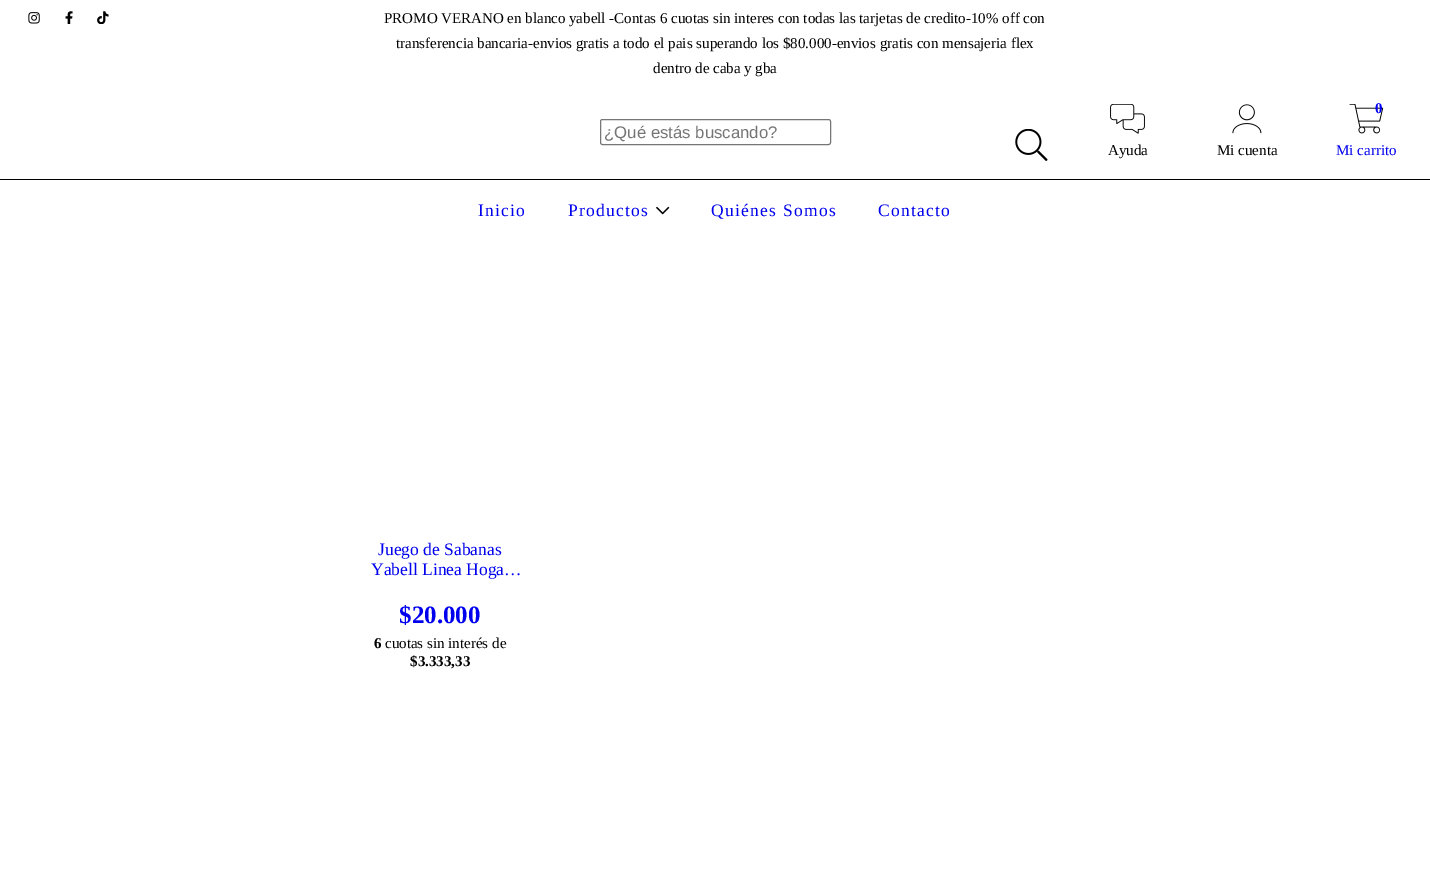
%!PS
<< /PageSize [1430 895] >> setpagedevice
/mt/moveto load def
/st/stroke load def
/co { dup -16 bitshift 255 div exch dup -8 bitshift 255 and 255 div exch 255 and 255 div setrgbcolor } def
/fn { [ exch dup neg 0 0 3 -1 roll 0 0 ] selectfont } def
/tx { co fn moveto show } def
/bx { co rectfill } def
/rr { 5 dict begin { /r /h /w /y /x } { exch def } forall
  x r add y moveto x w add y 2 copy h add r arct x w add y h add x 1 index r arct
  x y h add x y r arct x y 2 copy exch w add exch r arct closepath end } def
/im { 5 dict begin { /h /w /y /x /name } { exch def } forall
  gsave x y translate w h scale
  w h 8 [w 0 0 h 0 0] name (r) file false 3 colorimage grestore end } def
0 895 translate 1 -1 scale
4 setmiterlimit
0 0 1430 895 16#FFFFFF bx
(media/1.raw) 28 12 12 12 im
(media/2.raw) 65 11 8 13 im
(media/3.raw) 97 11 12 13 im
16#767676 co
600.5 119.5 230 25 2 rr st
(media/4.raw) 1015 129 33 32 im
(media/5.raw) 1110 104 35 30 im
(media/6.raw) 1232 104 30 30 im
(media/7.raw) 1349 104 35 30 im
0 179 1430 1 16#000000 bx
(media/8.raw) 656 206 14 9 im
(PROMO VERANO en blanco yabell -Contas 6 cuotas sin interes con todas las tarjetas de credito-10% off con) 384 23 /LiberationSerif-Regular 15 16#000000 tx
(transferencia bancaria-envios gratis a todo el pais superando los $80.000-envios gratis con mensajeria flex) 396 48 /LiberationSerif-Regular 15 16#000000 tx
(dentro de caba y gba) 653 73 /LiberationSerif-Regular 15 16#000000 tx
(¿Qué estás buscando?) 604 138 /LiberationSans-Regular 16.75 16#757575 tx
(Ayuda) 1108 155 /LiberationSerif-Regular 15 16#000000 tx
(Mi cuenta) 1217 155 /LiberationSerif-Regular 15 16#000000 tx
(0) 1375 113 /LiberationSerif-Bold 15 16#0000EE tx
(Mi carrito) 1336 155 /LiberationSerif-Regular 15 16#0000EE tx
/LiberationSerif-Regular 17.5 fn
478 216 mt 1.25 0 (Inicio) ashow
568 216 mt 1.25 0 (Productos) ashow
711 216 mt 1.25 0 (Quiénes Somos) ashow
878 216 mt 1.25 0 (Contacto) ashow
(Juego de Sabanas) 378 555 /LiberationSerif-Regular 17.5 16#0000EE tx
(Yabell Linea Hoga…) 371 575 /LiberationSerif-Regular 17.5 16#0000EE tx
($20.000) 399 623 /LiberationSerif-Bold 25 16#0000EE tx
(6) 374 648 /LiberationSerif-Bold 15 16#000000 tx
(cuotas sin interés de) 385 648 /LiberationSerif-Regular 15 16#000000 tx
($3.333,33) 410 666 /LiberationSerif-Bold 15 16#000000 tx
showpage
